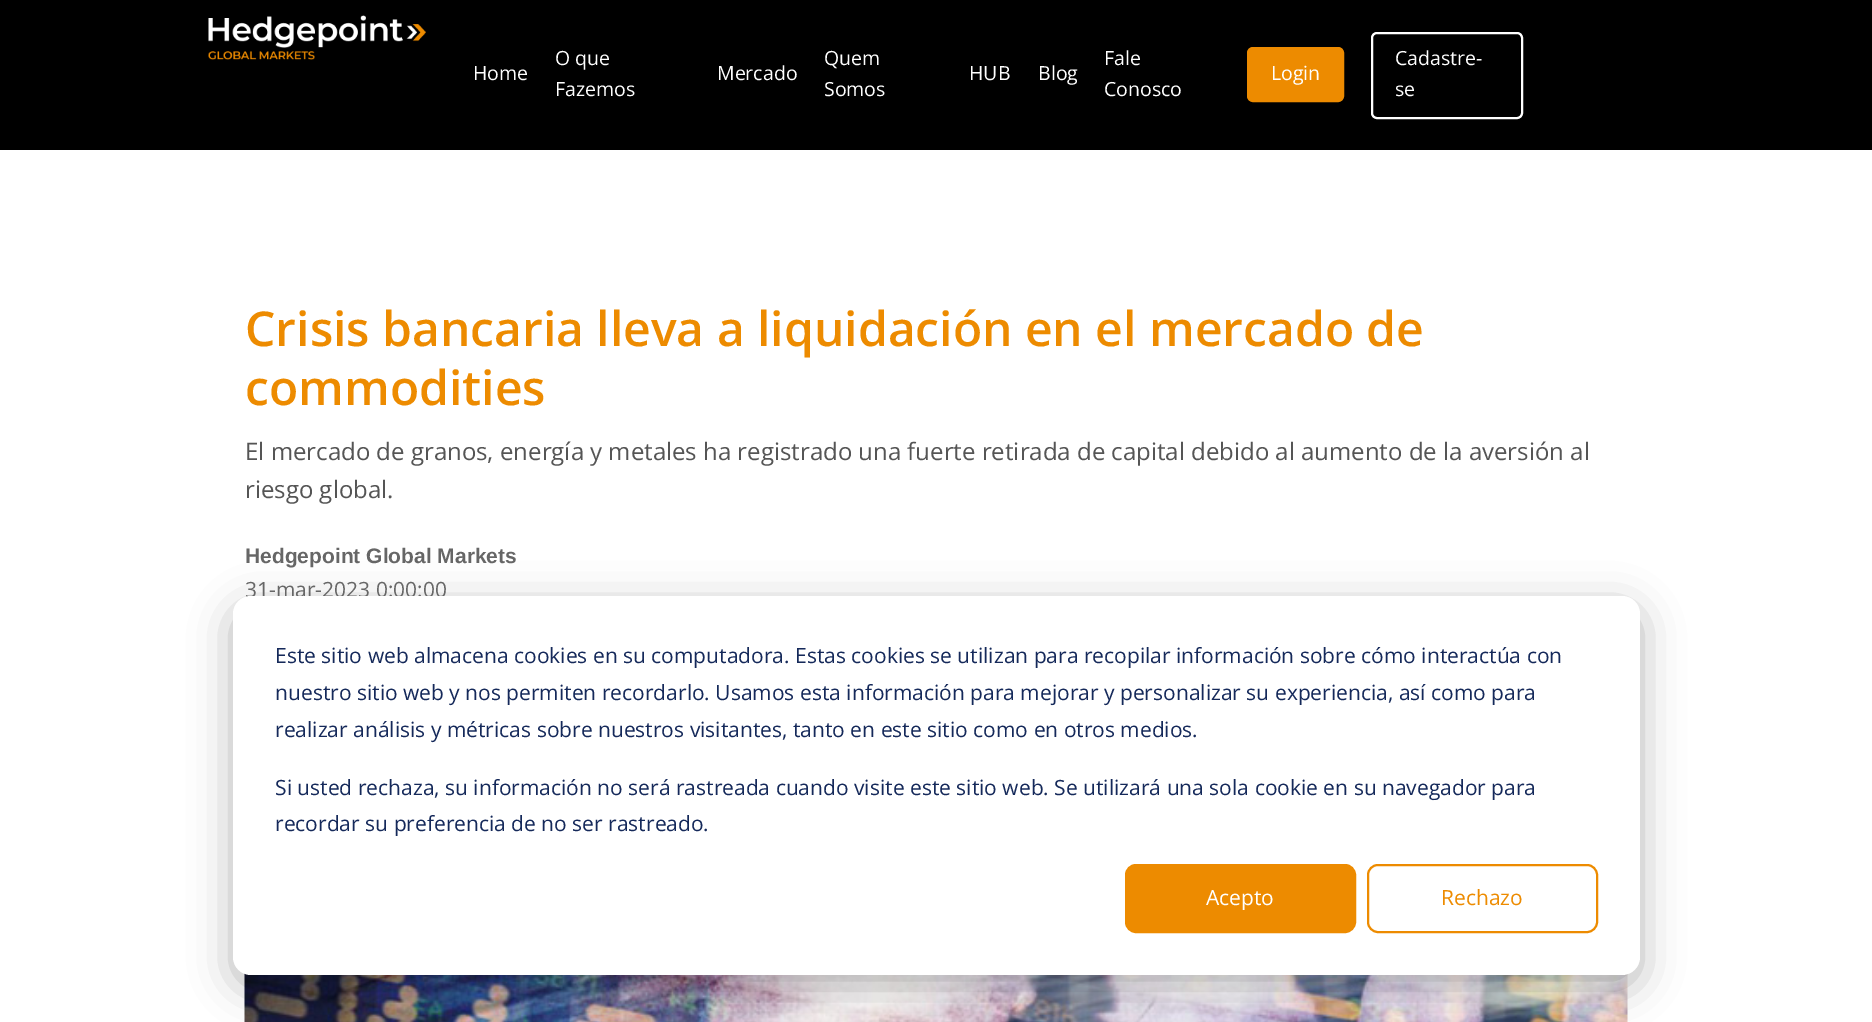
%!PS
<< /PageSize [1872 1022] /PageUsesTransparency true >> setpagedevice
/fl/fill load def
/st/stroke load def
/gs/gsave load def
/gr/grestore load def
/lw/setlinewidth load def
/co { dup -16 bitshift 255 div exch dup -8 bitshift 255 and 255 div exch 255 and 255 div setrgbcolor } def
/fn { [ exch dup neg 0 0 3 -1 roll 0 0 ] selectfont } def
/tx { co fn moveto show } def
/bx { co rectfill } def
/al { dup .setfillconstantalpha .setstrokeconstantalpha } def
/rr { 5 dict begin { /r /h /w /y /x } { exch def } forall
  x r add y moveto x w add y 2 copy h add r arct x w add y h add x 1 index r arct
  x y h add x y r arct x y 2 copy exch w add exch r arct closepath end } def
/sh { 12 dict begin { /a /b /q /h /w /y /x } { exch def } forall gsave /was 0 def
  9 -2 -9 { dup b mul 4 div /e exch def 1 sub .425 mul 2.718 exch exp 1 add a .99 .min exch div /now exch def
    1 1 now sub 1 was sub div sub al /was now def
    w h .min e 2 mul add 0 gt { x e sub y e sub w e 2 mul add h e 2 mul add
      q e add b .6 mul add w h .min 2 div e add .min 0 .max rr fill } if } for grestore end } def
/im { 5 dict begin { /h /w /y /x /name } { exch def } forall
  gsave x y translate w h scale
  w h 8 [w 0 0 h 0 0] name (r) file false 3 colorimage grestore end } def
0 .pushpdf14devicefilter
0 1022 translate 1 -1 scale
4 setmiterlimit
0 0 1872 1022 16#FFFFFF bx
0 0 1872 150 16#000000 bx
(media/1.raw) 208 15 218 45 im
16#ED8B00 co
1248 48 95 53 5 rr gs fl gr
2 lw
st
16#FFFFFF co
1372 33 150 85 5 rr st
(media/2.raw) 244 973 1384 49 im
16#000000 co
233 608 1407 379 18 21 .28 sh
(Home) 473 80 /OpenSans-Regular 19.5 16#FFFFFF tx
(O que) 555 65 /OpenSans-Regular 19.5 16#FFFFFF tx
(Fazemos) 555 96 /OpenSans-Regular 19.5 16#FFFFFF tx
(Mercado) 717 80 /OpenSans-Regular 19.5 16#FFFFFF tx
(Quem) 824 65 /OpenSans-Regular 19.5 16#FFFFFF tx
(Somos) 824 96 /OpenSans-Regular 19.5 16#FFFFFF tx
(HUB) 969 80 /OpenSans-Regular 19.5 16#FFFFFF tx
(Blog) 1038 80 /OpenSans-Regular 19.5 16#FFFFFF tx
(Fale) 1104 65 /OpenSans-Regular 19.5 16#FFFFFF tx
(Conosco) 1104 96 /OpenSans-Regular 19.5 16#FFFFFF tx
(Login) 1271 80 /OpenSans-Regular 19.5 16#FFFFFF tx
(Cadastre-) 1395 65 /OpenSans-Regular 19.5 16#FFFFFF tx
(se) 1395 96 /OpenSans-Regular 19.5 16#FFFFFF tx
(Crisis bancaria lleva a liquidación en el mercado de) 245 346 /OpenSans-SemiBold 48 16#ED8B00 tx
(commodities) 245 405 /OpenSans-SemiBold 48 16#ED8B00 tx
(El mercado de granos, energía y metales ha registrado una fuerte retirada de capital debido al aumento de la aversión al) 245 460 /OpenSans-Regular 24 16#555555 tx
(riesgo global.) 245 498 /OpenSans-Regular 24 16#555555 tx
(Hedgepoint Global Markets) 245 563 /LiberationSans-Bold 21 16#666666 tx
(31-mar-2023 0:00:00) 245 597 /OpenSans-Regular 21 16#666666 tx
16#FFFFFF co
233 596 1407 379 18 rr fl
(Este sitio web almacena cookies en su computadora. Estas cookies se utilizan para recopilar información sobre cómo interactúa con) 275 663 /OpenSans-Regular 21 16#15295A tx
(nuestro sitio web y nos permiten recordarlo. Usamos esta información para mejorar y personalizar su experiencia, así como para) 275 700 /OpenSans-Regular 21 16#15295A tx
(realizar análisis y métricas sobre nuestros visitantes, tanto en este sitio como en otros medios.) 275 737 /OpenSans-Regular 21 16#15295A tx
(Si usted rechaza, su información no será rastreada cuando visite este sitio web. Se utilizará una sola cookie en su navegador para) 275 795 /OpenSans-Regular 21 16#15295A tx
(recordar su preferencia de no ser rastreado.) 275 831 /OpenSans-Regular 21 16#15295A tx
16#ED8B00 co
1126 865 229 67 10 rr gs fl gr
st
(Acepto) 1206 905 /OpenSans-Regular 21 16#FFFFFF tx
16#ED8B00 co
1368 865 229 67 10 rr st
(Rechazo) 1441 905 /OpenSans-Regular 21 16#ED8B00 tx
.poppdf14devicefilter showpage
